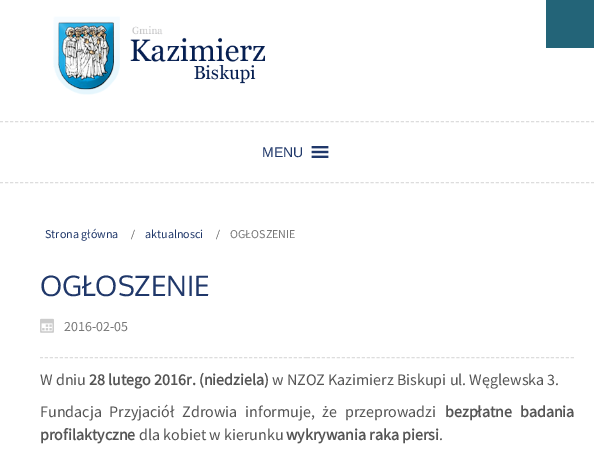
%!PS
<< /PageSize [594 452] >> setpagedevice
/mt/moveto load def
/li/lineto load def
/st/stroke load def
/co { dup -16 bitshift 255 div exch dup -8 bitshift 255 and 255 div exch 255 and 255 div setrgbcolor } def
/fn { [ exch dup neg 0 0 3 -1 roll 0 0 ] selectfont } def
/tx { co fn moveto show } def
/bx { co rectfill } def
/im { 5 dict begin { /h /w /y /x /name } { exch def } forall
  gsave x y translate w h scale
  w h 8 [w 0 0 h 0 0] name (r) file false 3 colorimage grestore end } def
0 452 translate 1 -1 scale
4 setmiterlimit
0 0 594 452 16#FFFFFF bx
546 0 48 48 16#236478 bx
16#DDDDDD co
[3 2.01] 0 setdash
0 182.5 mt 594 182.5 li st
0 121.5 mt 594 121.5 li st
(media/1.raw) 53 16 212 79 im
(media/2.raw) 311 146 18 12 im
(media/3.raw) 40 318 14 15 im
[3 1.98] 0 setdash
40 357.5 mt 307 357.5 li st
307 357.5 mt 574 357.5 li st
(MENU) 262 157 /LiberationSans-Regular 14 16#20386A tx
(Strona główna) 45 238 /SourceSansPro-Regular 12 16#20386A tx
(/) 131 239 /LiberationSerif-Regular 14 16#555555 tx
(aktualnosci) 145 238 /SourceSansPro-Regular 12 16#20386A tx
(/) 216 239 /LiberationSerif-Regular 14 16#555555 tx
(OGŁOSZENIE) 230 238 /SourceSansPro-Regular 12 16#777777 tx
(OGŁOSZENIE) 40 296 /Oxygen-Regular 28 16#20386A tx
(2016-02-05) 64 331 /SourceSansPro-Regular 14 16#777777 tx
(W dniu) 40 385 /SourceSansPro-Regular 16 16#555555 tx
(28 lutego 2016r. \(niedziela\)) 89 385 /SourceSansPro-Bold 16 16#555555 tx
(w NZOZ Kazimierz Biskupi ul. Węglewska 3.) 272 385 /SourceSansPro-Regular 16 16#555555 tx
40 417 mt 4.5 0 32 (Fundacja Przyjaciół Zdrowia informuje, że przeprowadzi) widthshow
/SourceSansPro-Bold 16 fn
445 417 mt 4.5 0 32 (bezpłatne badania) widthshow
(profilaktyczne) 40 440 /SourceSansPro-Bold 16 16#555555 tx
(dla kobiet w kierunku) 139 440 /SourceSansPro-Regular 16 16#555555 tx
(wykrywania raka piersi) 286 440 /SourceSansPro-Bold 16 16#555555 tx
(.) 439 440 /SourceSansPro-Regular 16 16#555555 tx
showpage
